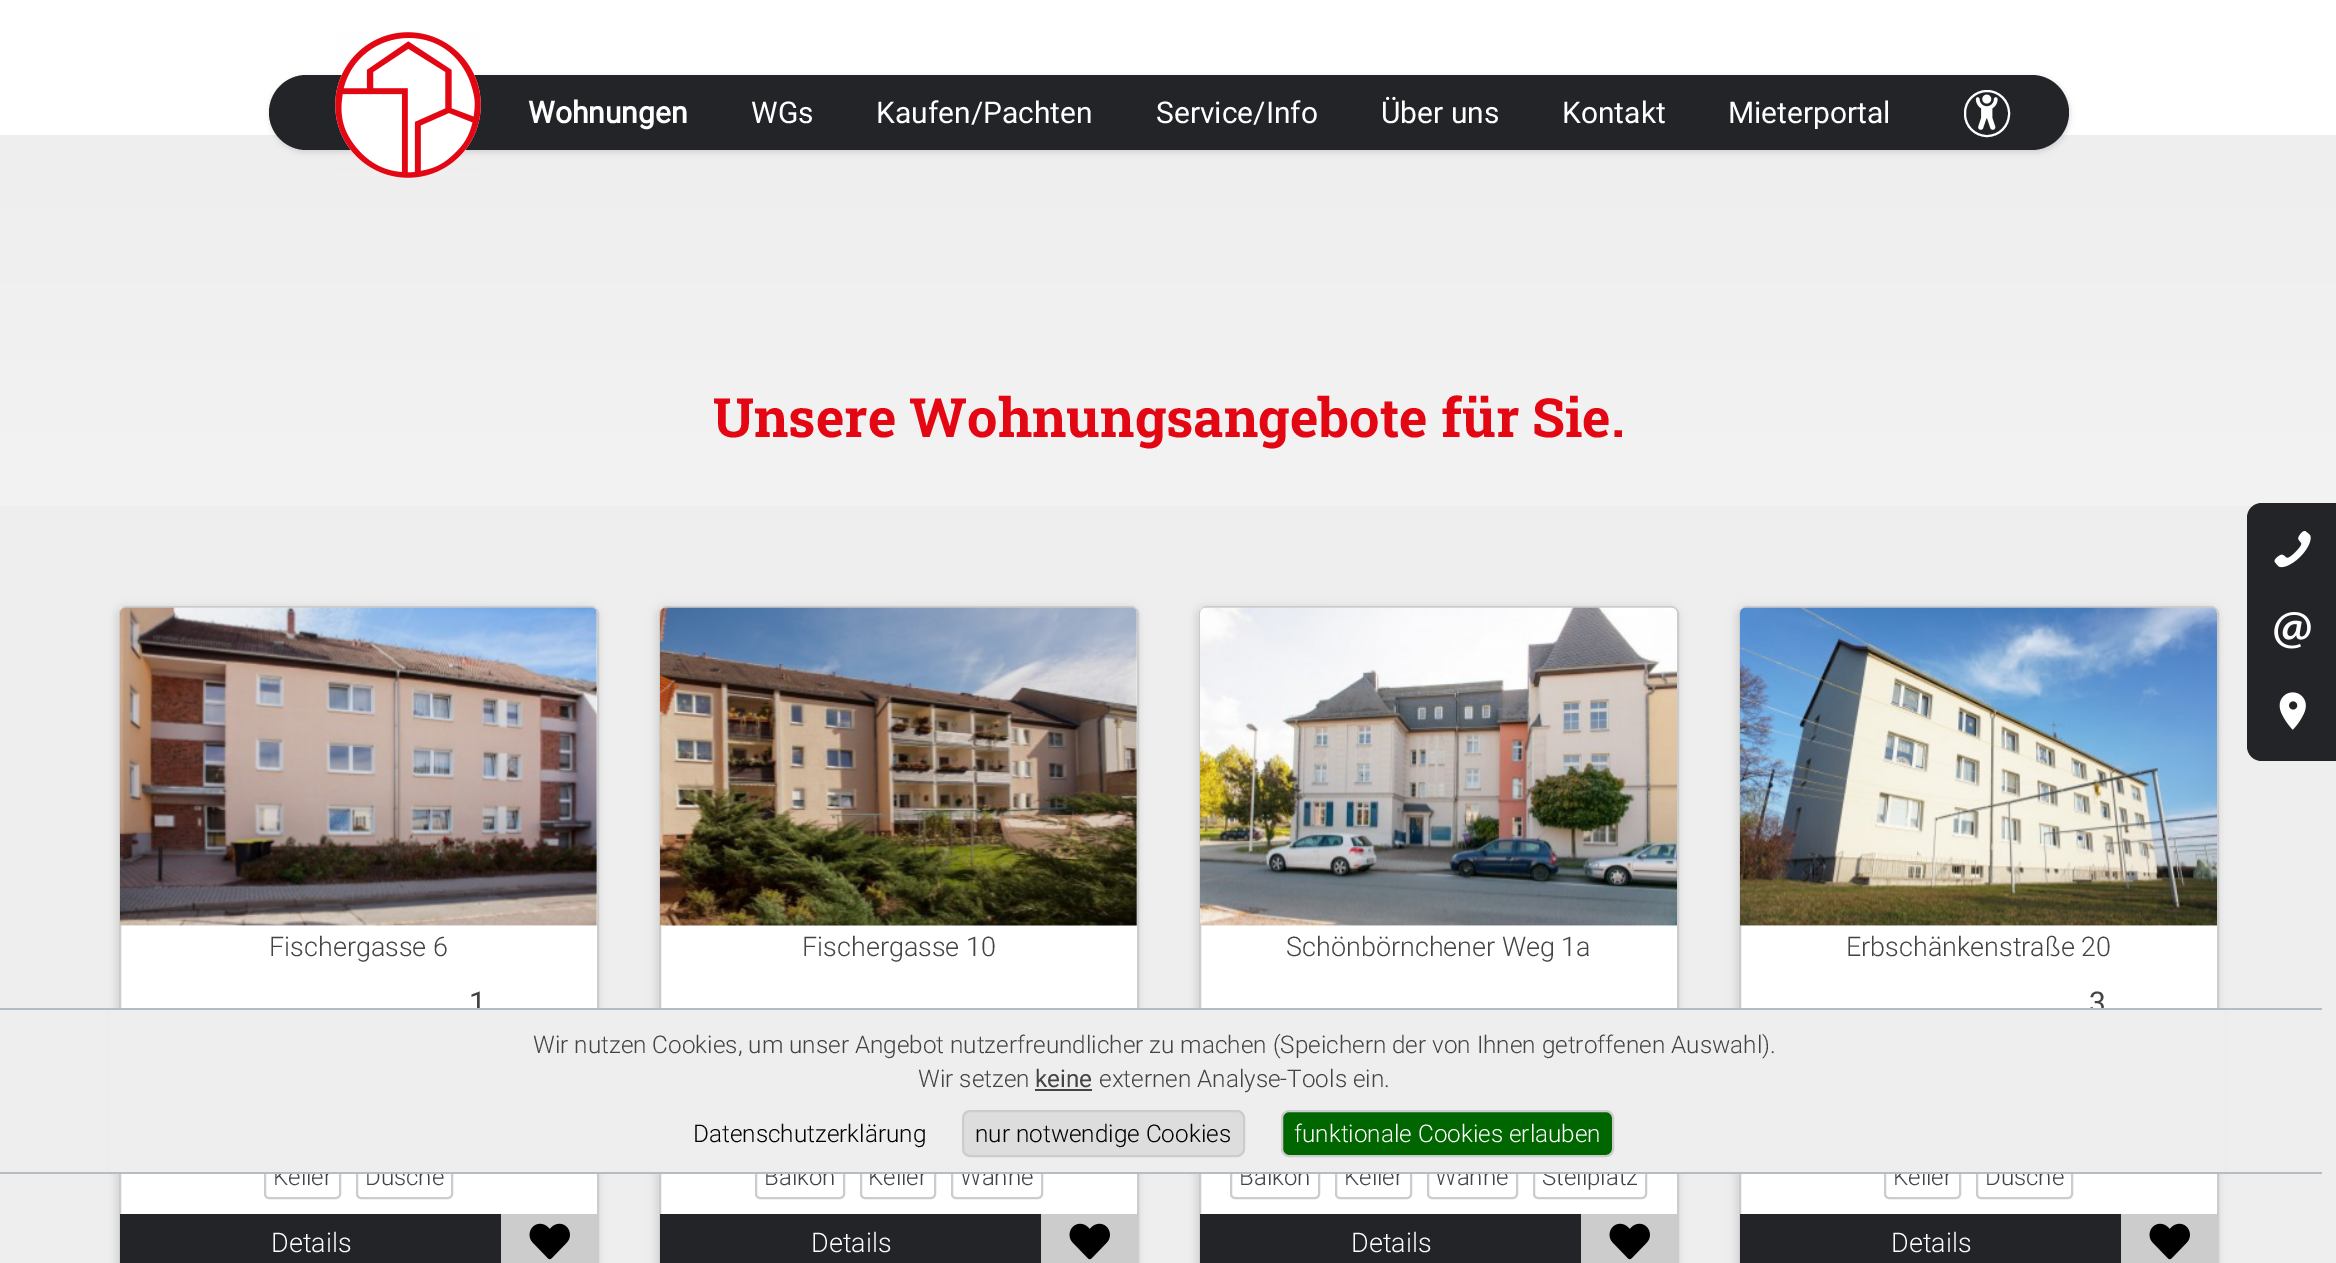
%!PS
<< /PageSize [2336 1263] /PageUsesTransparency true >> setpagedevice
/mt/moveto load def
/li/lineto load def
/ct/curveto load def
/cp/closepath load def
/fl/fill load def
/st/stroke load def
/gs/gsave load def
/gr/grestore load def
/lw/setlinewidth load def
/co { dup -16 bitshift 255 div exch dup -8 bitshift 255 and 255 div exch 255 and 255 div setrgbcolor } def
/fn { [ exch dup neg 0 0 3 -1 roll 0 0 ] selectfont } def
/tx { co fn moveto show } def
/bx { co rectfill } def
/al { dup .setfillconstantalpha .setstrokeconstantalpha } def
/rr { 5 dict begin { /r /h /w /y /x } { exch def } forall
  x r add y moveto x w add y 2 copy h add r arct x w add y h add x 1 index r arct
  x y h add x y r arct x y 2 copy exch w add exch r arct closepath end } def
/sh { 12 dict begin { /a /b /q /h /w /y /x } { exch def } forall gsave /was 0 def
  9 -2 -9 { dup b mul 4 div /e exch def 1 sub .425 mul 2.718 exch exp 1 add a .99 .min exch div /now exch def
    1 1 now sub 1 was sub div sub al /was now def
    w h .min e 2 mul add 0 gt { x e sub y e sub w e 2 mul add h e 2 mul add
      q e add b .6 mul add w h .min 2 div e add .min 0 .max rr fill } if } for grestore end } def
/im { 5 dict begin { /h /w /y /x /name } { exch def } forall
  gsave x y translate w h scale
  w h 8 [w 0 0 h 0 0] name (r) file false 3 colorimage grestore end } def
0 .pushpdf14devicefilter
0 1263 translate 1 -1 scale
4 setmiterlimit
0 0 2336 1263 16#FFFFFF bx
gs 0 135 mt 2336 135 li 2336 506 li 0 506 li cp clip newpath
<< /ShadingType 2 /ColorSpace /DeviceRGB /Coords [1169 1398 1169 135] /Extend [true true] /Function << /FunctionType 2 /Domain [0 1] /C0 [1 1 1] /C1 [.933 .933 .933] /N 1 >> >> shfill gr
16#000000 co
270 77 1800 75 37.5 3 .13 sh
16#222428 co
269 75 1800 75 37.5 rr fl
(media/1.raw) 335 38 146 140 im
(media/2.raw) 335 32 146 146 im
(media/3.raw) 1975 94 23 36 im
16#FFFFFF co
2 lw
1965 91 44 45 22 rr st
0 506 2336 757 16#EEEEEE bx
16#000000 co
117 608 480 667 8 5 .13 sh
16#FFFFFF co
120 607 478 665 7 rr gs fl gr
16#CCCCCC co
st
(media/4.raw) 120 607 477 319 im
265 1156 75 42 4 rr st
357 1156 95 42 4 rr st
120 1214 381 49 16#222428 bx
501 1214 96 49 16#CCCCCC bx
(media/5.raw) 529 1223 41 37 im
16#000000 co
657 608 480 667 8 5 .13 sh
16#FFFFFF co
660 607 478 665 7 rr gs fl gr
16#CCCCCC co
st
(media/6.raw) 660 607 477 319 im
756 1156 88 42 4 rr st
861 1156 74 42 4 rr st
952 1156 90 42 4 rr st
660 1214 381 49 16#222428 bx
1041 1214 96 49 16#CCCCCC bx
(media/5.raw) 1069 1223 41 37 im
16#000000 co
1197 608 480 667 8 5 .13 sh
16#FFFFFF co
1200 607 478 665 7 rr gs fl gr
16#CCCCCC co
st
(media/7.raw) 1200 607 477 319 im
1231 1156 88 42 4 rr st
1336 1156 75 42 4 rr st
1428 1156 89 42 4 rr st
1534 1156 112 42 4 rr st
1200 1214 381 49 16#222428 bx
1581 1214 96 49 16#CCCCCC bx
(media/5.raw) 1609 1223 41 37 im
16#000000 co
1737 608 480 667 8 5 .13 sh
16#FFFFFF co
1740 607 478 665 7 rr gs fl gr
16#CCCCCC co
st
(media/8.raw) 1740 607 477 319 im
1885 1156 75 42 4 rr st
1977 1156 95 42 4 rr st
1740 1214 381 49 16#222428 bx
2121 1214 96 49 16#CCCCCC bx
(media/5.raw) 2149 1223 41 37 im
16#222428 co
2262 503 mt 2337 503 li 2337 761 li 2262 761 li 2253.5 761 2247 754.5 2247 746 ct 2247 518 li 2247 509.5 2253.5 503 2262 503 ct cp fl
(media/9.raw) 2274 530 37 38 im
(media/10.raw) 2274 612 37 37 im
(media/11.raw) 2279 692 27 38 im
(Wohnungen) 528 123 /Roboto-Bold 30 16#FFFFFF tx
(WGs) 751 123 /Roboto-Regular 30 16#FFFFFF tx
(Kaufen/Pachten) 876 123 /Roboto-Regular 30 16#FFFFFF tx
(Service/Info) 1156 123 /Roboto-Regular 30 16#FFFFFF tx
(Über uns) 1381 123 /Roboto-Regular 30 16#FFFFFF tx
(Kontakt) 1562 123 /Roboto-Regular 30 16#FFFFFF tx
(Mieterportal) 1728 123 /Roboto-Regular 30 16#FFFFFF tx
(Unsere Wohnungsangebote für Sie.) 713 437 /RobotoSlab-Bold 54 16#E30613 tx
(Fischergasse 6) 269 956 /Roboto-Light 27 16#444444 tx
(1) 469 1013 /Roboto-Regular 30 16#444444 tx
(Keller) 273 1185 /Roboto-Light 24 16#444444 tx
(Dusche) 365 1185 /Roboto-Light 24 16#444444 tx
(Details) 271 1252 /Roboto-Light 27 16#FFFFFF tx
(Fischergasse 10) 802 956 /Roboto-Light 27 16#444444 tx
(Balkon) 764 1185 /Roboto-Light 24 16#444444 tx
(Keller) 868 1185 /Roboto-Light 24 16#444444 tx
(Wanne) 960 1185 /Roboto-Light 24 16#444444 tx
(Details) 811 1252 /Roboto-Light 27 16#FFFFFF tx
(Schönbörnchener Weg 1a) 1286 956 /Roboto-Light 27 16#444444 tx
(Balkon) 1239 1185 /Roboto-Light 24 16#444444 tx
(Keller) 1344 1185 /Roboto-Light 24 16#444444 tx
(Wanne) 1435 1185 /Roboto-Light 24 16#444444 tx
(Stellplatz) 1542 1185 /Roboto-Light 24 16#444444 tx
(Details) 1351 1252 /Roboto-Light 27 16#FFFFFF tx
(Erbschänkenstraße 20) 1846 956 /Roboto-Light 27 16#444444 tx
(3) 2089 1013 /Roboto-Regular 30 16#444444 tx
(Keller) 1893 1185 /Roboto-Light 24 16#444444 tx
(Dusche) 1985 1185 /Roboto-Light 24 16#444444 tx
(Details) 1891 1252 /Roboto-Light 27 16#FFFFFF tx
110 1010 2114 162 16#EEEEEE bx
0 1008 2322 2 16#B5BDC4 bx
0 1172 2322 2 16#B5BDC4 bx
(Wir nutzen Cookies, um unser Angebot nutzerfreundlicher zu machen \(Speichern der von Ihnen getroffenen Auswahl\).) 533 1053 /Roboto-Light 24.3 16#444444 tx
(Wir setzen) 918 1087 /Roboto-Light 24.3 16#444444 tx
(keine) 1035 1087 /Roboto-Regular 24.3 16#444444 tx
1035 1089 57 2 16#444444 bx
(externen Analyse-Tools ein.) 1099 1087 /Roboto-Light 24.3 16#444444 tx
(Datenschutzerklärung) 693 1142 /Roboto-Light 24.3 16#000000 tx
16#DDDDDD co
963 1111 281 45 7 rr gs fl gr
16#CCCCCC co
st
(nur notwendige Cookies) 975 1142 /Roboto-Light 24.3 16#000000 tx
16#006600 co
1282 1111 331 45 7 rr gs fl gr
16#CCCCCC co
st
(funktionale Cookies erlauben) 1294 1142 /Roboto-Light 24.3 16#FFFFFF tx
.poppdf14devicefilter showpage
